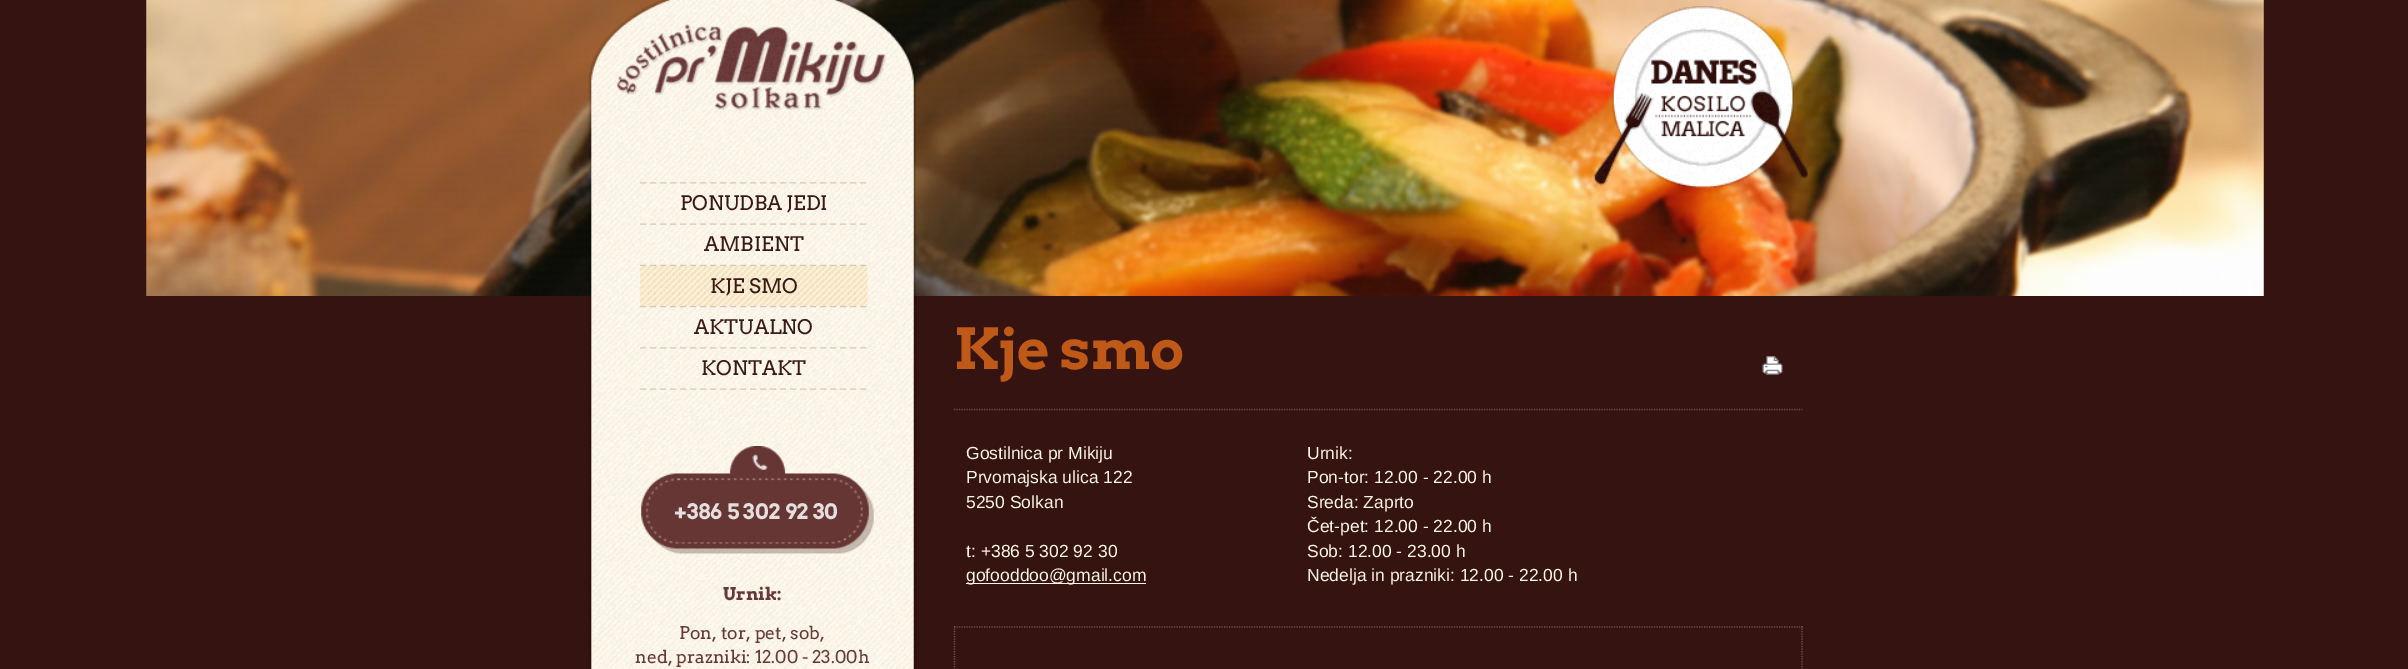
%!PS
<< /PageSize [2408 669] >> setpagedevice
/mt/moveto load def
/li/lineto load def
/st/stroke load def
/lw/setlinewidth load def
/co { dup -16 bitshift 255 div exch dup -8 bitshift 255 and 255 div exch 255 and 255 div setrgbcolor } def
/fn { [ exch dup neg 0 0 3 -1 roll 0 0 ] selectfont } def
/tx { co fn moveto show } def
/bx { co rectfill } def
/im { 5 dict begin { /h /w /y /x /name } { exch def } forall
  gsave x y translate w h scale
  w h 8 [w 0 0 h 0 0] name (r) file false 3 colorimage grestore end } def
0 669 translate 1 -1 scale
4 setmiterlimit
0 0 2408 669 16#341310 bx
(media/1.raw) 146 0 2118 296 im
(media/2.raw) 588 0 329 669 im
(media/3.raw) 617 24 269 87 im
(media/4.raw) 640 388 227 2 im
(media/5.raw) 640 182 227 2 im
(media/6.raw) 640 223 227 2 im
(media/7.raw) 640 264 227 2 im
(media/8.raw) 640 266 228 40 im
(media/9.raw) 640 306 227 2 im
(media/10.raw) 640 347 227 2 im
(media/11.raw) 641 446 233 108 im
(media/12.raw) 1593 6 215 182 im
16#6C5451 co
1.2 lw
[1.25 1.25] 0 setdash
954 409.5 mt 1802.5 409.5 li st
(media/13.raw) 1762 356 21 19 im
966 583 180 1 16#FEF6E5 bx
16#6C5451 co
954 627 mt 1802.5 627 li st
954.5 626 mt 954.5 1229 li st
1802 626 mt 1802 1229 li st
(PONUDBA JEDI) 680 210 /Arvo-Regular 20 16#391815 tx
(AMBIENT) 704 251 /Arvo-Regular 20 16#391815 tx
(KJE SMO) 710 293 /Arvo-Regular 20 16#391815 tx
(AKTUALNO) 694 334 /Arvo-Regular 20 16#391815 tx
(KONTAKT) 701 375 /Arvo-Regular 20 16#391815 tx
(+386 5 302 92 30) 674 519 /Arvo-Bold 21.25 16#E4DFDE tx
(Urnik:) 723 600 /Arvo-Bold 17.5 16#663838 tx
(Pon, tor, pet, sob,) 679 639 /Arvo-Regular 17.5 16#663838 tx
(ned, prazniki: 12.00 - 23.00h) 635 663 /Arvo-Regular 17.5 16#663838 tx
(Kje smo) 954 369 /Arvo-Bold 56.25 16#BF5918 tx
(Gostilnica pr Mikiju) 966 459 /LiberationSans-Regular 17.5 16#FEF6E5 tx
(Prvomajska ulica 122) 966 483 /LiberationSans-Regular 17.5 16#FEF6E5 tx
(5250 Solkan) 966 508 /LiberationSans-Regular 17.5 16#FEF6E5 tx
(t: +386 5 302 92 30) 966 557 /LiberationSans-Regular 17.5 16#FEF6E5 tx
(gofooddoo@gmail.com) 966 581 /LiberationSans-Regular 17.5 16#FEF6E5 tx
(Urnik:) 1307 459 /LiberationSans-Regular 17.5 16#FEF6E5 tx
(Pon-tor: 12.00 - 22.00 h) 1307 483 /LiberationSans-Regular 17.5 16#FEF6E5 tx
(Sreda: Zaprto) 1307 508 /LiberationSans-Regular 17.5 16#FEF6E5 tx
(Čet-pet: 12.00 - 22.00 h) 1307 532 /LiberationSans-Regular 17.5 16#FEF6E5 tx
(Sob: 12.00 - 23.00 h) 1307 557 /LiberationSans-Regular 17.5 16#FEF6E5 tx
(Nedelja in prazniki: 12.00 - 22.00 h) 1307 581 /LiberationSans-Regular 17.5 16#FEF6E5 tx
showpage
